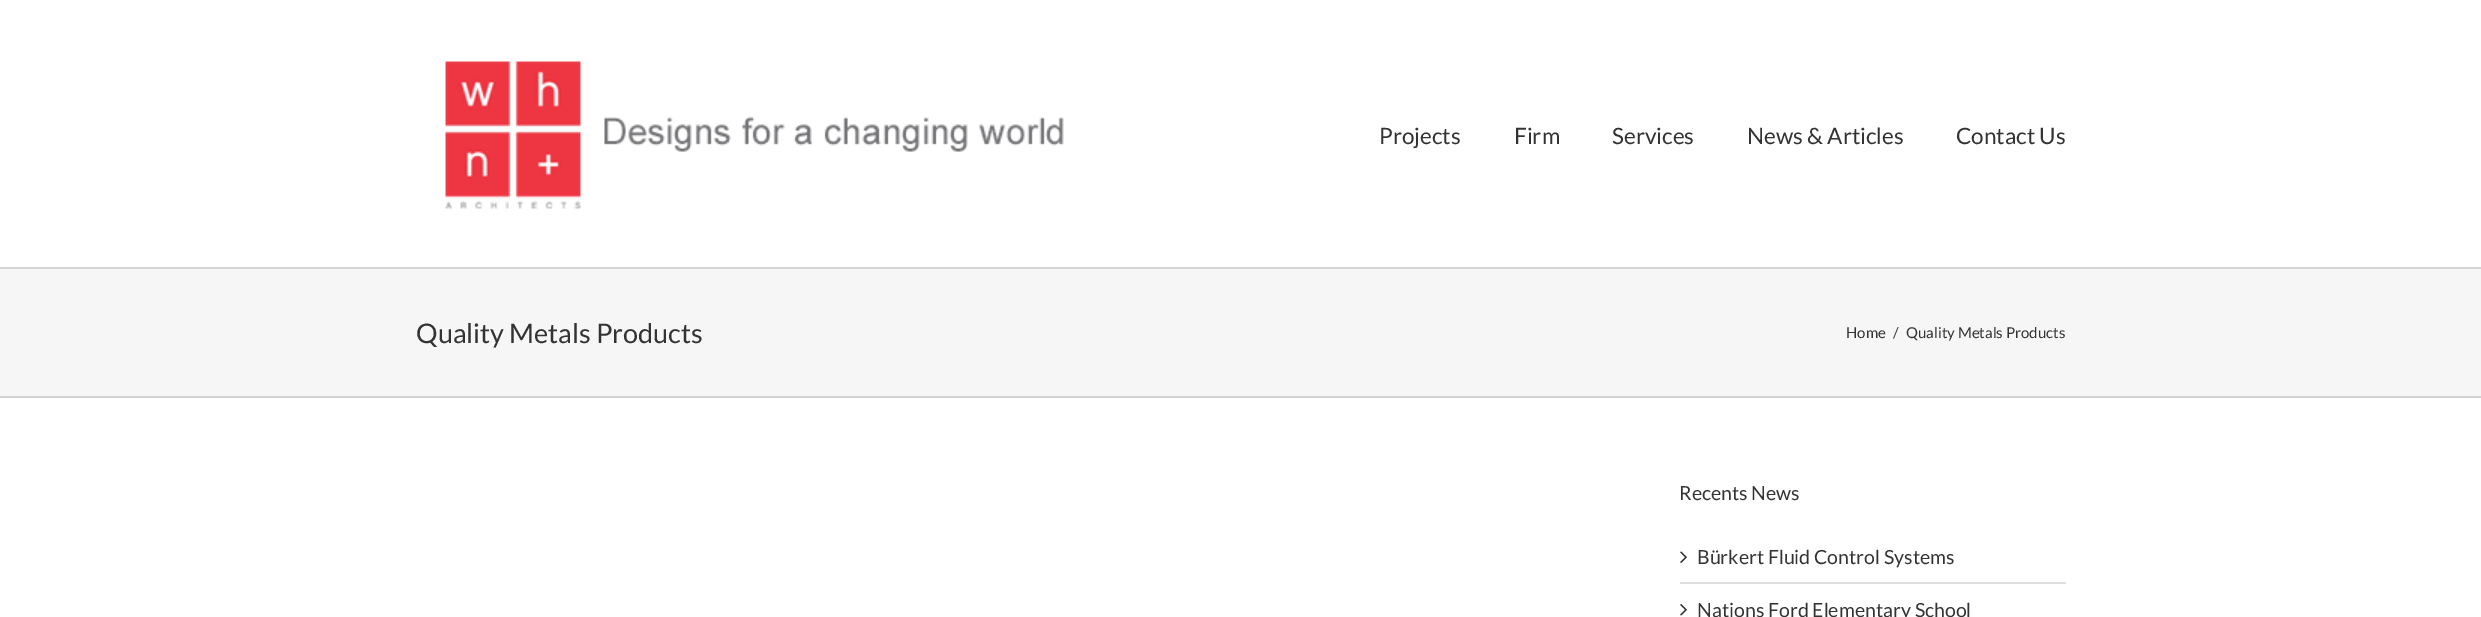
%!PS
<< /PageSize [2481 617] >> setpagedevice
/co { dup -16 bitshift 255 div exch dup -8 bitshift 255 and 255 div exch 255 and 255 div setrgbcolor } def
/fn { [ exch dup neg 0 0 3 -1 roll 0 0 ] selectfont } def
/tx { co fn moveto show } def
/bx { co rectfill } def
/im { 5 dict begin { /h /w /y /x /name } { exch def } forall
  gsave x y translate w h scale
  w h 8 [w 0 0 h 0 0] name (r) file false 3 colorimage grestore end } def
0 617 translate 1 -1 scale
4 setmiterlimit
0 0 2481 617 16#FFFFFF bx
(media/1.raw) 445 61 619 148 im
0 269 2481 127 16#F6F6F6 bx
0 267 2481 2 16#D2D3D4 bx
0 396 2481 2 16#D2D3D4 bx
1680 582 386 2 16#E0DEDE bx
(media/2.raw) 1680 551 7 12 im
(media/3.raw) 1680 604 7 12 im
(Projects) 1379 144 /Lato-Regular 22.5 16#333333 tx
(Firm) 1514 144 /Lato-Regular 22.5 16#333333 tx
(Services) 1612 144 /Lato-Regular 22.5 16#333333 tx
(News & Articles) 1747 144 /Lato-Regular 22.5 16#333333 tx
(Contact Us) 1956 144 /Lato-Regular 22.5 16#333333 tx
(Quality Metals Products) 416 343 /Lato-Regular 27 16#333333 tx
(Home) 1846 338 /Lato-Regular 15 16#333333 tx
(/) 1893 338 /Lato-Regular 15 16#333333 tx
(Quality Metals Products) 1906 338 /Lato-Regular 15 16#333333 tx
(Recents News) 1679 500 /Lato-Regular 19.5 16#333333 tx
(Bürkert Fluid Control Systems) 1697 564 /Lato-Regular 19.5 16#333333 tx
(Nations Ford Elementary School) 1697 617 /Lato-Regular 19.5 16#333333 tx
showpage
